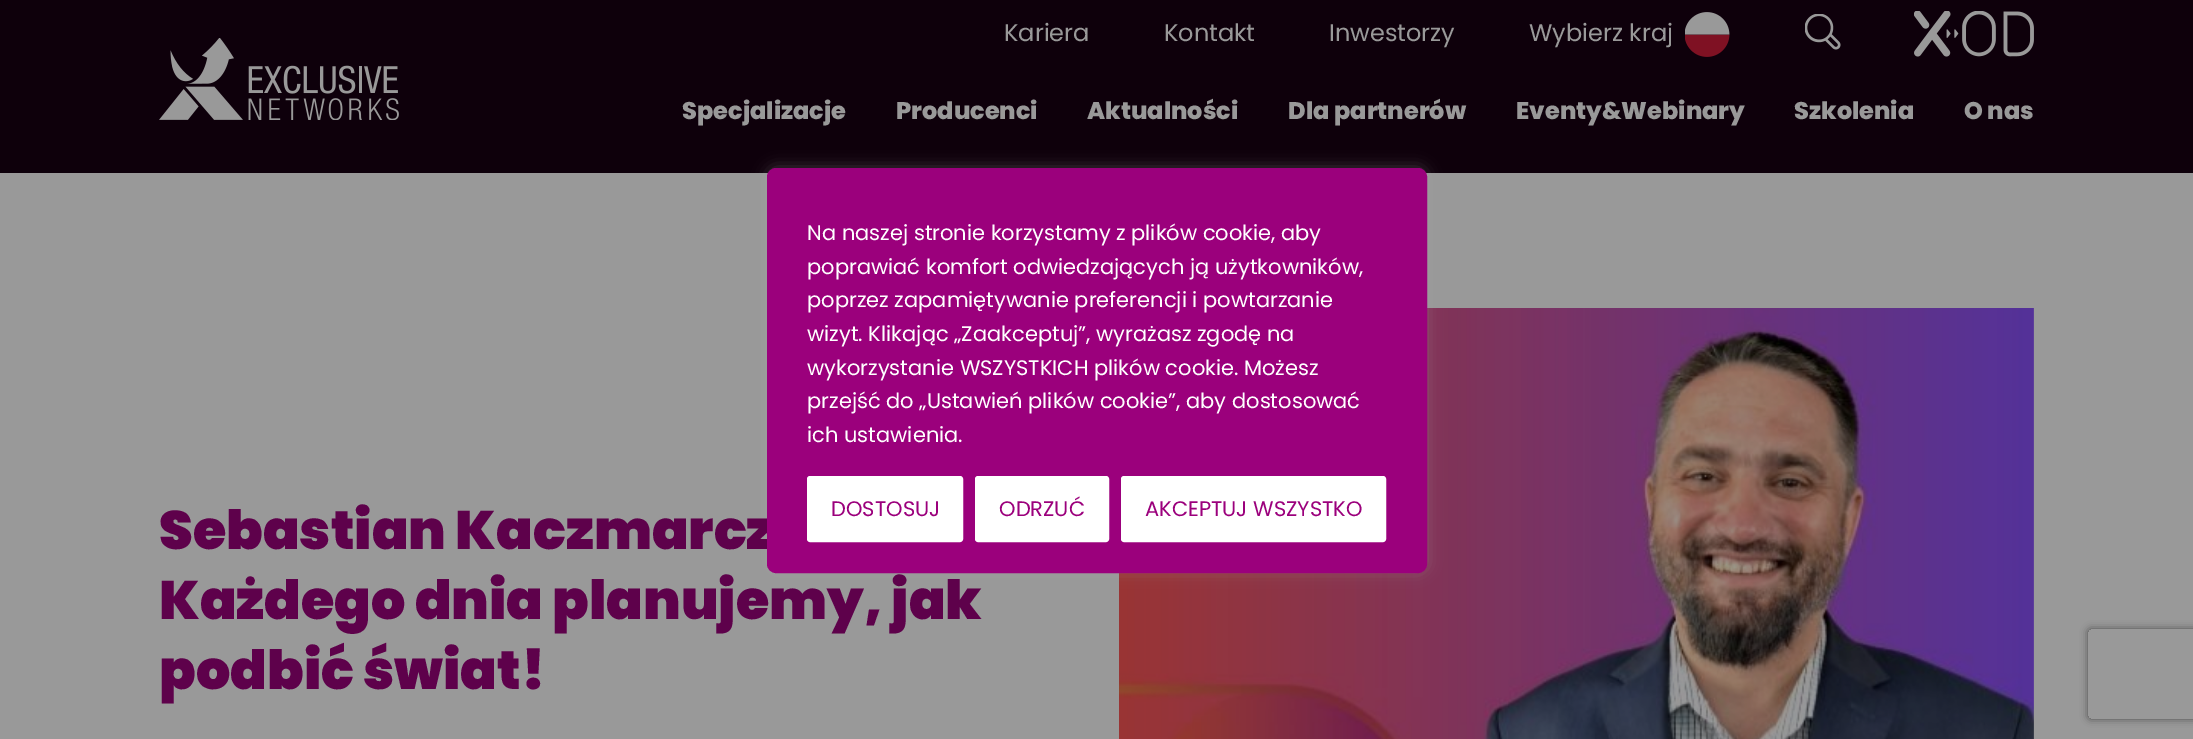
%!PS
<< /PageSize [2193 739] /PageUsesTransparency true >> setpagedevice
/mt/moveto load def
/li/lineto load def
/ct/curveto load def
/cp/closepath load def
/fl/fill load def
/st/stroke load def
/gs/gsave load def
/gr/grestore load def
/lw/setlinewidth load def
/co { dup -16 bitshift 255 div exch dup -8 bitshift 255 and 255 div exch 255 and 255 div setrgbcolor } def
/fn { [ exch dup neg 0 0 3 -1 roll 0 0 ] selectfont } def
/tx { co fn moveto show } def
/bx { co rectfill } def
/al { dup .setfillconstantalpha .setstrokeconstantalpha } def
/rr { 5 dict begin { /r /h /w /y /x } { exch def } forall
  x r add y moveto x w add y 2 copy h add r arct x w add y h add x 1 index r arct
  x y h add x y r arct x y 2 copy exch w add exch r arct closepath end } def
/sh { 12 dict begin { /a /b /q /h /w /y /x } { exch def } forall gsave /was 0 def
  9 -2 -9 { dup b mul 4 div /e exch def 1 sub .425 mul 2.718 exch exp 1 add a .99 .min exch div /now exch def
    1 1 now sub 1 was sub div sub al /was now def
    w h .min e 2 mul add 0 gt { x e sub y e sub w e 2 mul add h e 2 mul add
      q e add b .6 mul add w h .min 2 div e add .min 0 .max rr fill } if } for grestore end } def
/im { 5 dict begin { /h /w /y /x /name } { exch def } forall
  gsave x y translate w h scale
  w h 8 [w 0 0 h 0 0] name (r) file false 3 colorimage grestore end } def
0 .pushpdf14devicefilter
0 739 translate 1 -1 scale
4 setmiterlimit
0 0 2193 739 16#999999 bx
0 0 2193 173 16#0E000B bx
(media/1.raw) 159 38 240 82 im
(media/2.raw) 1685 12 45 45 im
(media/3.raw) 1805 14 36 36 im
(media/4.raw) 1914 11 120 46 im
(media/5.raw) 1119 308 915 431 im
16#ACABAB co
767 167 660 405 9 7.5 .3 sh
gs
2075 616 mt 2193 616 li 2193 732 li 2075 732 li cp 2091 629 mt 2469 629 li 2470.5 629 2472 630.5 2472 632 ct 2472 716 li 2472 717.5 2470.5 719 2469 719 ct 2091 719 li 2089.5 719 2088 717.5 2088 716 ct 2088 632 li 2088 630.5 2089.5 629 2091 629 ct cp eoclip newpath
16#4D4D4D co
2088 629 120 90 3 4 1 sh
gr
(Kariera) 1004 41 /Poppins-Regular 24 16#999999 tx
(Kontakt) 1164 41 /Poppins-Regular 24 16#999999 tx
(Inwestorzy) 1329 41 /Poppins-Regular 24 16#999999 tx
(Wybierz kraj) 1529 41 /Poppins-Regular 24 16#999999 tx
(Specjalizacje) 682 119 /Poppins-ExtraBold 24 16#999999 tx
(Producenci) 896 119 /Poppins-ExtraBold 24 16#999999 tx
(Aktualności) 1087 119 /Poppins-ExtraBold 24 16#999999 tx
(Dla partnerów) 1288 119 /Poppins-ExtraBold 24 16#999999 tx
(Eventy&Webinary) 1516 119 /Poppins-ExtraBold 24 16#999999 tx
(Szkolenia) 1794 119 /Poppins-ExtraBold 24 16#999999 tx
(O nas) 1964 119 /Poppins-ExtraBold 24 16#999999 tx
(Sebastian Kaczmarcz) 159 549 /Poppins-Black 54 16#5E014B tx
(Każdego dnia planujemy, jak) 159 619 /Poppins-Black 54 16#5E014B tx
(podbić świat!) 159 689 /Poppins-Black 54 16#5E014B tx
16#9B007C co
768 169 658 403 8 rr gs fl gr
2 lw
st
(Na naszej stronie korzystamy z plików cookie, aby) 807 240 /Poppins-Regular 21 16#FFFFFF tx
(poprawiać komfort odwiedzających ją użytkowników,) 807 274 /Poppins-Regular 21 16#FFFFFF tx
(poprzez zapamiętywanie preferencji i powtarzanie) 807 307 /Poppins-Regular 21 16#FFFFFF tx
(wizyt. Klikając „Zaakceptuj”, wyrażasz zgodę na) 807 341 /Poppins-Regular 21 16#FFFFFF tx
(wykorzystanie WSZYSTKICH plików cookie. Możesz) 807 375 /Poppins-Regular 21 16#FFFFFF tx
(przejść do „Ustawień plików cookie”, aby dostosować) 807 408 /Poppins-Regular 21 16#FFFFFF tx
(ich ustawienia.) 807 442 /Poppins-Regular 21 16#FFFFFF tx
808.5 477.5 153 63 1.5 rr gs fl gr
3 lw
st
(DOSTOSUJ) 831 516 /Poppins-Regular 21 16#9B007C tx
16#FFFFFF co
976.5 477.5 131 63 1.5 rr gs fl gr
st
(ODRZUĆ) 999 516 /Poppins-Regular 21 16#9B007C tx
16#FFFFFF co
1122.5 477.5 262 63 1.5 rr gs fl gr
st
(AKCEPTUJ WSZYSTKO) 1145 516 /Poppins-Regular 21 16#9B007C tx
.poppdf14devicefilter showpage
